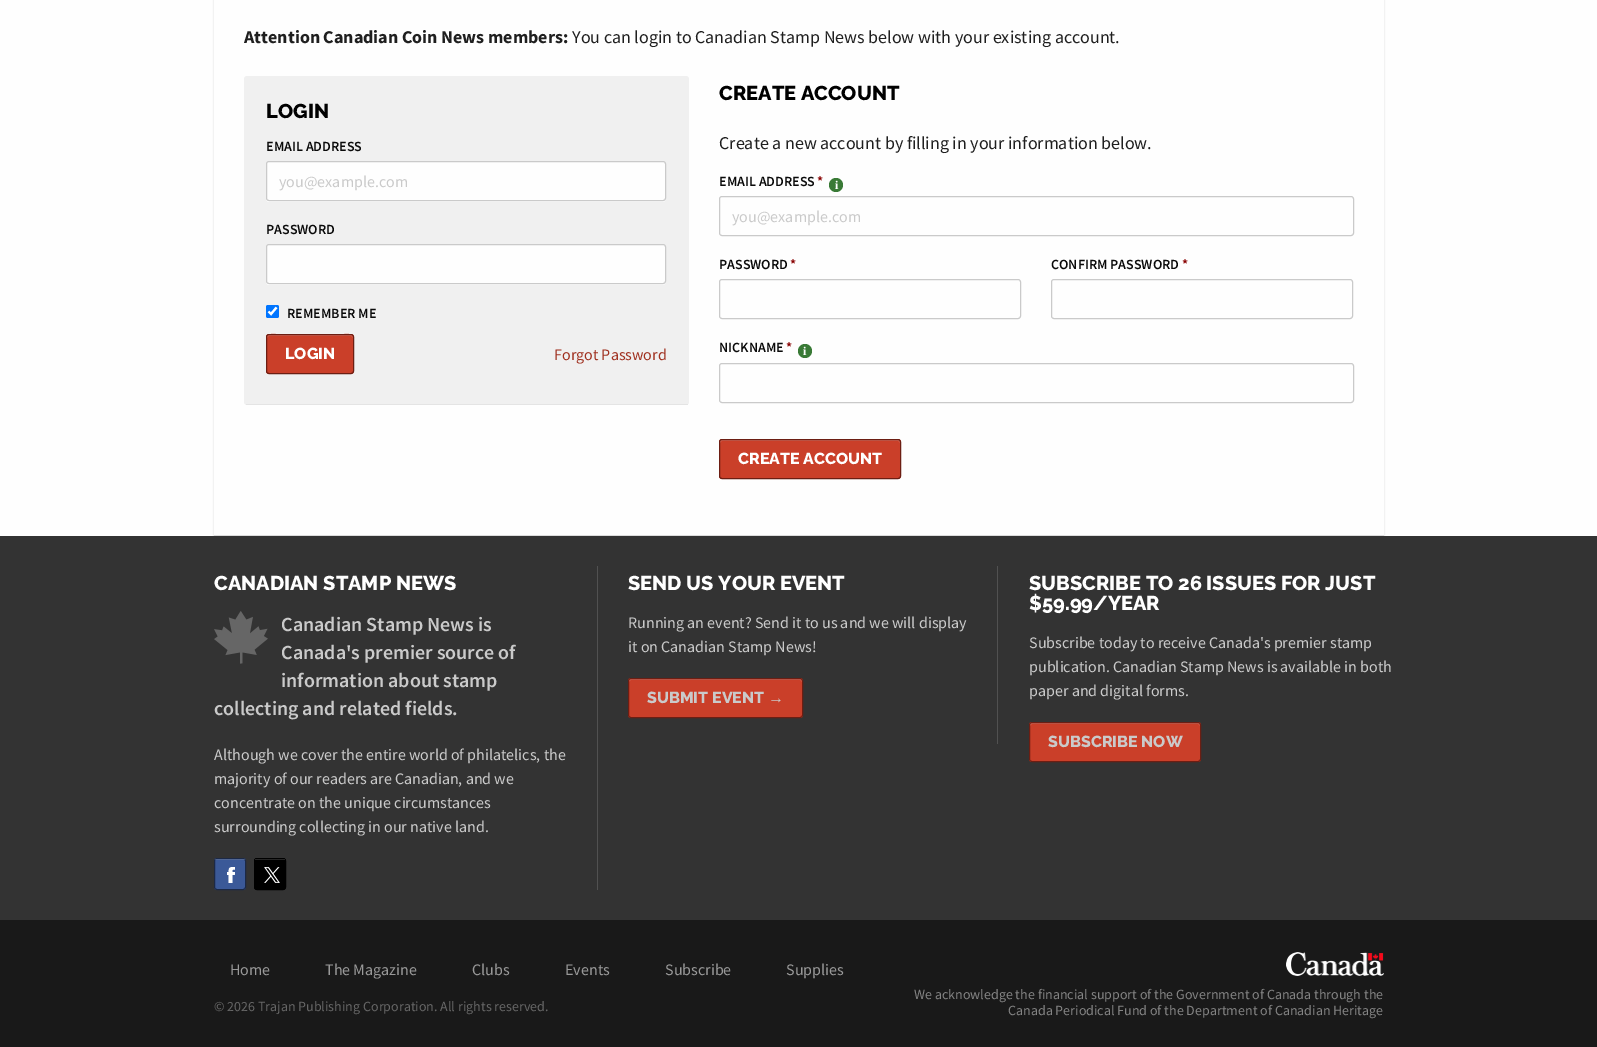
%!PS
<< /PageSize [1597 1047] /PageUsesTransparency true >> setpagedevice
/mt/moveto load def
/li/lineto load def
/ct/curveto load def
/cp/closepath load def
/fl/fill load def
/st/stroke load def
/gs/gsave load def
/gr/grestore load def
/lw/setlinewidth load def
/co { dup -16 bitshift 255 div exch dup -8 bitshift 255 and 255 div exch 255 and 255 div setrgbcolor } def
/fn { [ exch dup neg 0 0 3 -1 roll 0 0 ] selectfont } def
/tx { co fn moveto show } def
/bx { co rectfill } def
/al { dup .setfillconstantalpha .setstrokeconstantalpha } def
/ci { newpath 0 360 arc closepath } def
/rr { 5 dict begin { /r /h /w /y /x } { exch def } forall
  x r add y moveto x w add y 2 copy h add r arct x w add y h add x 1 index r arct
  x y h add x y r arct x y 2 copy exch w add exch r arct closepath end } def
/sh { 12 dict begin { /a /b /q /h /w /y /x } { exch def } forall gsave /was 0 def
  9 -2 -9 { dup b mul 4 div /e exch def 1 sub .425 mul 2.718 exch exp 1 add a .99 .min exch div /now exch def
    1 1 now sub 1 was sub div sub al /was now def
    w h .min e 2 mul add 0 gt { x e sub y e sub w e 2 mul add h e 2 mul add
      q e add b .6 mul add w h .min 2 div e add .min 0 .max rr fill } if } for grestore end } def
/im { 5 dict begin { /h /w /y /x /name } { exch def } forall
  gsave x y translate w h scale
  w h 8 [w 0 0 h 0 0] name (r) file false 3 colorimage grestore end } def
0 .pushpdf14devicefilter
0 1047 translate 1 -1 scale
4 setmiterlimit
0 0 1597 1047 16#FEFEFE bx
gs
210 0 mt 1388 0 li 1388 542 li 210 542 li cp 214 -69 mt 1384 -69 li 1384 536 li 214 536 li cp eoclip newpath
16#000000 co
214 -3 1170 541 0 1 .15 sh
gr
214 535 1170 1 16#DCDCDC bx
16#F0F0F0 co
244 76 445 329 3 rr fl
246 404 442 1 16#E4E4E4 bx
16#FFFFFF co
266 198 mt 266 200 267 202 269 202 ct 663 202 li 665 201 li 666 198 li 666 200 665 201 663 201 ct 269 201 li 267 201 266 200 266 198 ct cp fl
16#FEFEFE co
266.5 161.5 399 39 2.5 rr gs fl gr
16#CACACA co
st
16#FFFFFF co
266 281 mt 266 283 267 285 269 285 ct 663 285 li 665 284 li 666 281 li 666 283 665 284 663 284 ct 269 284 li 267 284 266 283 266 281 ct cp fl
16#FEFEFE co
266.5 244.5 399 39 2.5 rr gs fl gr
16#CACACA co
st
16#0075FF co
266 305 13 13 2 rr fl
16#FFFFFF co
2.1 lw
268.5 311.5 mt 271 314 li 276.5 307.5 li st
16#CA3F29 co
266 334 88 40 3 rr fl
16#D56554 co
269 336 mt 351 336 li 352 336 353 337 353 338 ct 353 331 340 335 337 335 ct 283 335 li 280 335 267 331 267 338 ct 267 337 268 336 269 336 ct cp fl
16#6C1E13 co
1 lw
266.5 334.5 87 39 2.5 rr st
16#397A36 co
836 185 7 ci fl
16#CACACA co
719.5 196.5 634 39 2.5 rr st
719.5 279.5 301 39 2.5 rr st
1051.5 279.5 301 39 2.5 rr st
16#397A36 co
805 351 7 ci fl
16#CACACA co
719.5 363.5 634 39 2.5 rr st
16#CA3F29 co
719 439 182 40 3 rr fl
16#D56554 co
722 441 mt 898 441 li 899 441 900 442 900 443 ct 900 442 li 900 441 899 440 898 440 ct 722 440 li 721 440 720 441 720 442 ct 720 443 li 720 442 721 441 722 441 ct cp fl
16#6C1E13 co
719.5 439.5 181 39 2.5 rr st
0 536 1597 384 16#333333 bx
597 566 1 324 16#515151 bx
(media/1.raw) 214 611 54 53 im
16#3B5998 co
214 858 32 32 3 rr fl
(media/2.raw) 227 867 8 16 im
16#1C2946 co
214.5 858.5 31 31 2.5 rr st
0.15 al
215 859 30 1 16#FFFFFF bx
1 al
16#000000 co
254 858 32 32 3 rr fl
(media/3.raw) 264 867 16 16 im
254.5 858.5 31 31 2.5 rr st
255 859 30 1 16#262626 bx
997 566 1 178 16#515151 bx
16#CA3F29 co
628 678 175 40 3 rr fl
16#D56554 co
631 680 mt 800 680 li 801 680 802 681 802 682 ct 802 681 802 679 800 679 ct 630 679 li 629 680 629 681 629 682 ct 629 681 630 680 631 680 ct cp fl
16#6C1E13 co
628.5 678.5 174 39 2.5 rr st
16#CA3F29 co
1029 722 172 40 3 rr fl
16#D56554 co
1032 724 mt 1198 724 li 1199 724 1200 725 1200 726 ct 1200 725 1200 723 1198 723 ct 1032 723 li 1030 723 1030 725 1030 726 ct 1030 725 1031 724 1032 724 ct cp fl
16#6C1E13 co
1029.5 722.5 171 39 2.5 rr st
0 920 1597 127 16#191919 bx
(media/4.raw) 1286 952 98 24 im
(Attention Canadian Coin News members:) 244 43 /SourceSansPro-Bold 18 16#1F1F1F tx
(You can login to Canadian Stamp News below with your existing account.) 572 43 /SourceSansPro-Regular 18 16#1F1F1F tx
(LOGIN) 266 118 /Raleway-ExtraBold 20 16#000000 tx
(EMAIL ADDRESS) 266 151 /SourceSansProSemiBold-SemiBold 14 16#0A0A0A tx
(you@example.com) 279 187 /SourceSansPro-Regular 16 16#CACACA tx
(PASSWORD) 266 234 /SourceSansProSemiBold-SemiBold 14 16#0A0A0A tx
(REMEMBER ME) 287 318 /SourceSansProSemiBold-SemiBold 14 16#0A0A0A tx
(LOGIN) 285 359 /Raleway-ExtraBold 16 16#FFFFFF tx
(Forgot Password) 554 360 /SourceSansPro-Regular 16 16#A03120 tx
(CREATE ACCOUNT) 719 100 /Raleway-ExtraBold 20 16#000000 tx
(Create a new account by filling in your information below.) 719 149 /SourceSansPro-Regular 18 16#1F1F1F tx
(EMAIL ADDRESS) 719 186 /SourceSansProSemiBold-SemiBold 14 16#0A0A0A tx
(*) 817 186 /SourceSansProSemiBold-SemiBold 14 16#880000 tx
(i) 835 189 /LiberationSerif-Bold 12 16#FFFFFF tx
(you@example.com) 732 222 /SourceSansPro-Regular 16 16#CACACA tx
(PASSWORD) 719 269 /SourceSansProSemiBold-SemiBold 14 16#0A0A0A tx
(*) 790 269 /SourceSansProSemiBold-SemiBold 14 16#880000 tx
(CONFIRM PASSWORD) 1051 269 /SourceSansProSemiBold-SemiBold 14 16#0A0A0A tx
(*) 1182 269 /SourceSansProSemiBold-SemiBold 14 16#880000 tx
(NICKNAME) 719 352 /SourceSansProSemiBold-SemiBold 14 16#0A0A0A tx
(*) 786 352 /SourceSansProSemiBold-SemiBold 14 16#880000 tx
(i) 803 355 /LiberationSerif-Bold 12 16#FFFFFF tx
(CREATE ACCOUNT) 738 464 /Raleway-ExtraBold 16 16#FFFFFF tx
(CANADIAN STAMP NEWS) 214 590 /Raleway-ExtraBold 20 16#FFFFFF tx
(Canadian Stamp News is) 281 631 /SourceSansProSemiBold-SemiBold 20 16#CACACA tx
(Canada's premier source of) 281 659 /SourceSansProSemiBold-SemiBold 20 16#CACACA tx
(information about stamp) 281 687 /SourceSansProSemiBold-SemiBold 20 16#CACACA tx
(collecting and related fields.) 214 715 /SourceSansProSemiBold-SemiBold 20 16#CACACA tx
(Although we cover the entire world of philatelics, the) 214 760 /SourceSansPro-Regular 16 16#CACACA tx
(majority of our readers are Canadian, and we) 214 784 /SourceSansPro-Regular 16 16#CACACA tx
(concentrate on the unique circumstances) 214 808 /SourceSansPro-Regular 16 16#CACACA tx
(surrounding collecting in our native land.) 214 832 /SourceSansPro-Regular 16 16#CACACA tx
(SEND US YOUR EVENT) 628 590 /Raleway-ExtraBold 20 16#FFFFFF tx
(Running an event? Send it to us and we will display) 628 628 /SourceSansPro-Regular 16 16#CACACA tx
(it on Canadian Stamp News!) 628 652 /SourceSansPro-Regular 16 16#CACACA tx
(SUBMIT EVENT) 647 703 /Raleway-ExtraBold 16 16#CACACA tx
(→) 768 703 /LiberationSans-Bold 16 16#CACACA tx
(SUBSCRIBE TO 26 ISSUES FOR JUST) 1029 590 /Raleway-ExtraBold 20 16#FFFFFF tx
($59.99/YEAR) 1029 610 /Raleway-ExtraBold 20 16#FFFFFF tx
(Subscribe today to receive Canada's premier stamp) 1029 648 /SourceSansPro-Regular 16 16#CACACA tx
(publication. Canadian Stamp News is available in both) 1029 672 /SourceSansPro-Regular 16 16#CACACA tx
(paper and digital forms.) 1029 696 /SourceSansPro-Regular 16 16#CACACA tx
(SUBSCRIBE NOW) 1048 747 /Raleway-ExtraBold 16 16#CACACA tx
(Home) 230 975 /SourceSansPro-Regular 16 16#999999 tx
(The Magazine) 325 975 /SourceSansPro-Regular 16 16#999999 tx
(Clubs) 472 975 /SourceSansPro-Regular 16 16#999999 tx
(Events) 565 975 /SourceSansPro-Regular 16 16#999999 tx
(Subscribe) 665 975 /SourceSansPro-Regular 16 16#999999 tx
(Supplies) 786 975 /SourceSansPro-Regular 16 16#999999 tx
(© 2026 Trajan Publishing Corporation. All rights reserved.) 214 1011 /SourceSansPro-Regular 14 16#666666 tx
(We acknowledge the financial support of the Government of Canada through the) 914 999 /SourceSansPro-Regular 14 16#848484 tx
(Canada Periodical Fund of the Department of Canadian Heritage) 1008 1015 /SourceSansPro-Regular 14 16#848484 tx
.poppdf14devicefilter showpage
